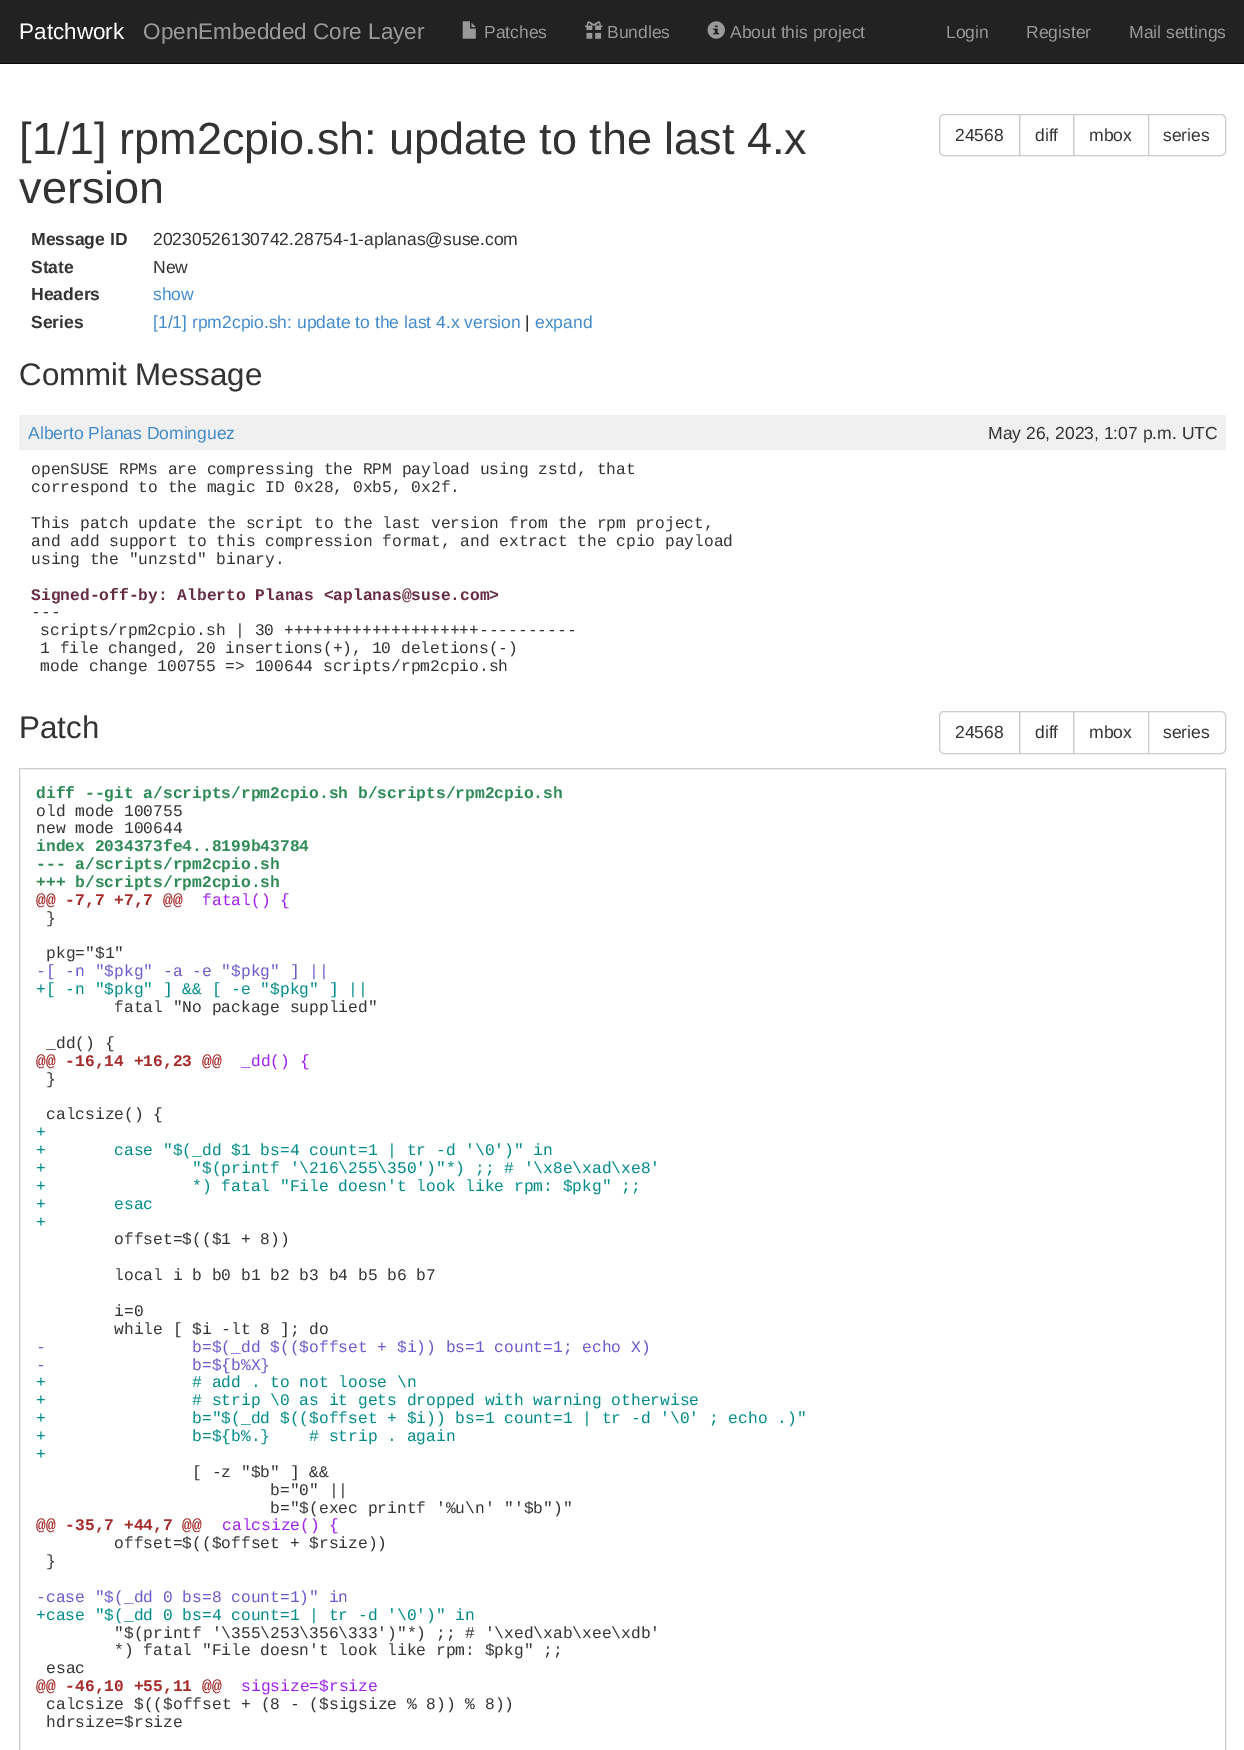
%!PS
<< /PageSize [1244 1750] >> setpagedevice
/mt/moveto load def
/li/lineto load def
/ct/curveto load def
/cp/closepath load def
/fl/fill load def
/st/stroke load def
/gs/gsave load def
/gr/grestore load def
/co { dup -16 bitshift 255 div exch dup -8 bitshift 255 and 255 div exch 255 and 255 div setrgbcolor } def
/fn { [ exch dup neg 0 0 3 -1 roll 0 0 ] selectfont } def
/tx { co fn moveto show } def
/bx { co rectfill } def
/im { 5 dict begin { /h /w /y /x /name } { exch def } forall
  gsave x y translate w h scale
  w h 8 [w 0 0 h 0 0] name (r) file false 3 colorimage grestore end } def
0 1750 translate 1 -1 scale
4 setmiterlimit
0 0 1244 1750 16#FFFFFF bx
0 0 1244 63 16#222222 bx
0 63 1244 1 16#080808 bx
(media/1.raw) 462 21 14 18 im
(media/2.raw) 585 21 18 18 im
(media/3.raw) 707 21 18 18 im
16#CCCCCC co
944 114.5 mt 1019.5 114.5 li 1019.5 155.5 li 944 155.5 li 941.5 155.5 939.5 153.5 939.5 151 ct 939.5 119 li 939.5 116.5 941.5 114.5 944 114.5 ct cp st
1019.5 114.5 54 41 rectstroke
1073.5 114.5 75 41 rectstroke
16#FFFFFF co
1148.5 114.5 mt 1221 114.5 li 1223.5 114.5 1225.5 116.5 1225.5 119 ct 1225.5 151 li 1225.5 153.5 1223.5 155.5 1221 155.5 ct 1148.5 155.5 li cp gs fl gr
16#CCCCCC co
st
19 415 1207 35 16#F0F0F0 bx
16#CCCCCC co
944 711.5 mt 1019.5 711.5 li 1019.5 753.5 li 944 753.5 li 941.5 753.5 939.5 751.5 939.5 749 ct 939.5 716 li 939.5 713.5 941.5 711.5 944 711.5 ct cp st
1019.5 711.5 54 42 rectstroke
1073.5 711.5 75 42 rectstroke
16#FFFFFF co
1148.5 711.5 mt 1221 711.5 li 1223.5 711.5 1225.5 713.5 1225.5 716 ct 1225.5 749 li 1225.5 751.5 1223.5 753.5 1221 753.5 ct 1148.5 753.5 li cp gs fl gr
16#CCCCCC co
st
19.5 768.5 1206 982 rectstroke
(Patchwork) 19 39 /LiberationSans-Regular 22.5 16#FFFFFF tx
(OpenEmbedded Core Layer) 143 39 /LiberationSans-Regular 22.5 16#999999 tx
(Patches) 484 38 /LiberationSans-Regular 17.5 16#999999 tx
(Bundles) 607 38 /LiberationSans-Regular 17.5 16#999999 tx
(About this project) 730 38 /LiberationSans-Regular 17.5 16#999999 tx
(Login) 946 38 /LiberationSans-Regular 17.5 16#999999 tx
(Register) 1026 38 /LiberationSans-Regular 17.5 16#999999 tx
(Mail settings) 1129 38 /LiberationSans-Regular 17.5 16#999999 tx
([1/1] rpm2cpio.sh: update to the last 4.x) 19 154 /LiberationSans-Regular 45 16#333333 tx
(version) 19 203 /LiberationSans-Regular 45 16#333333 tx
(24568) 955 141 /LiberationSans-Regular 17.5 16#333333 tx
(diff) 1035 141 /LiberationSans-Regular 17.5 16#333333 tx
(mbox) 1089 141 /LiberationSans-Regular 17.5 16#333333 tx
(series) 1163 141 /LiberationSans-Regular 17.5 16#333333 tx
(Message ID) 31 245 /LiberationSans-Bold 17.5 16#333333 tx
(20230526130742.28754-1-aplanas@suse.com) 153 245 /LiberationSans-Regular 17.5 16#333333 tx
(State) 31 273 /LiberationSans-Bold 17.5 16#333333 tx
(New) 153 273 /LiberationSans-Regular 17.5 16#333333 tx
(Headers) 31 300 /LiberationSans-Bold 17.5 16#333333 tx
(show) 153 300 /LiberationSans-Regular 17.5 16#428BCA tx
(Series) 31 328 /LiberationSans-Bold 17.5 16#333333 tx
([1/1] rpm2cpio.sh: update to the last 4.x version) 153 328 /LiberationSans-Regular 17.5 16#428BCA tx
(|) 525 328 /LiberationSans-Regular 17.5 16#333333 tx
(expand) 535 328 /LiberationSans-Regular 17.5 16#428BCA tx
(Commit Message) 19 385 /LiberationSans-Regular 31.25 16#333333 tx
(Alberto Planas Dominguez) 28 439 /LiberationSans-Regular 17.5 16#428BCA tx
(May 26, 2023, 1:07 p.m. UTC) 988 439 /LiberationSans-Regular 17.5 16#333333 tx
(openSUSE RPMs are compressing the RPM payload using zstd, that) 31 474 /LiberationMono-Regular 16.25 16#333333 tx
(correspond to the magic ID 0x28, 0xb5, 0x2f.) 31 492 /LiberationMono-Regular 16.25 16#333333 tx
(This patch update the script to the last version from the rpm project,) 31 528 /LiberationMono-Regular 16.25 16#333333 tx
(and add support to this compression format, and extract the cpio payload) 31 546 /LiberationMono-Regular 16.25 16#333333 tx
(using the "unzstd" binary.) 31 564 /LiberationMono-Regular 16.25 16#333333 tx
(Signed-off-by: Alberto Planas <aplanas@suse.com>) 31 600 /LiberationMono-Bold 16.25 16#672D45 tx
(---) 31 617 /LiberationMono-Regular 16.25 16#333333 tx
(scripts/rpm2cpio.sh | 30 ++++++++++++++++++++----------) 40 635 /LiberationMono-Regular 16.25 16#333333 tx
(1 file changed, 20 insertions\(+\), 10 deletions\(-\)) 40 653 /LiberationMono-Regular 16.25 16#333333 tx
(mode change 100755 => 100644 scripts/rpm2cpio.sh) 40 671 /LiberationMono-Regular 16.25 16#333333 tx
(Patch) 19 738 /LiberationSans-Regular 31.25 16#333333 tx
(24568) 955 738 /LiberationSans-Regular 17.5 16#333333 tx
(diff) 1035 738 /LiberationSans-Regular 17.5 16#333333 tx
(mbox) 1089 738 /LiberationSans-Regular 17.5 16#333333 tx
(series) 1163 738 /LiberationSans-Regular 17.5 16#333333 tx
(diff --git a/scripts/rpm2cpio.sh b/scripts/rpm2cpio.sh) 36 798 /LiberationMono-Bold 16.25 16#2E8B57 tx
(old mode 100755) 36 816 /LiberationMono-Regular 16.25 16#333333 tx
(new mode 100644) 36 833 /LiberationMono-Regular 16.25 16#333333 tx
(index 2034373fe4..8199b43784) 36 851 /LiberationMono-Bold 16.25 16#2E8B57 tx
(--- a/scripts/rpm2cpio.sh) 36 869 /LiberationMono-Bold 16.25 16#2E8B57 tx
(+++ b/scripts/rpm2cpio.sh) 36 887 /LiberationMono-Bold 16.25 16#2E8B57 tx
(@@ -7,7 +7,7 @@) 36 905 /LiberationMono-Bold 16.25 16#A52A2A tx
(fatal\(\) {) 202 905 /LiberationMono-Regular 16.25 16#A020F0 tx
(}) 46 923 /LiberationMono-Regular 16.25 16#333333 tx
(pkg="$1") 46 958 /LiberationMono-Regular 16.25 16#333333 tx
(-[ -n "$pkg" -a -e "$pkg" ] ||) 36 976 /LiberationMono-Regular 16.25 16#6A5ACD tx
(+[ -n "$pkg" ] && [ -e "$pkg" ] ||) 36 994 /LiberationMono-Regular 16.25 16#008B8B tx
(fatal "No package supplied") 114 1012 /LiberationMono-Regular 16.25 16#333333 tx
(_dd\(\) {) 46 1048 /LiberationMono-Regular 16.25 16#333333 tx
(@@ -16,14 +16,23 @@) 36 1066 /LiberationMono-Bold 16.25 16#A52A2A tx
(_dd\(\) {) 241 1066 /LiberationMono-Regular 16.25 16#A020F0 tx
(}) 46 1084 /LiberationMono-Regular 16.25 16#333333 tx
(calcsize\(\) {) 46 1119 /LiberationMono-Regular 16.25 16#333333 tx
(+) 36 1137 /LiberationMono-Regular 16.25 16#008B8B tx
(+) 36 1155 /LiberationMono-Regular 16.25 16#008B8B tx
(case "$\(_dd $1 bs=4 count=1 | tr -d '\\0'\)" in) 114 1155 /LiberationMono-Regular 16.25 16#008B8B tx
(+) 36 1173 /LiberationMono-Regular 16.25 16#008B8B tx
("$\(printf '\\216\\255\\350'\)"*\) ;; # '\\x8e\\xad\\xe8') 192 1173 /LiberationMono-Regular 16.25 16#008B8B tx
(+) 36 1191 /LiberationMono-Regular 16.25 16#008B8B tx
(*\) fatal "File doesn't look like rpm: $pkg" ;;) 192 1191 /LiberationMono-Regular 16.25 16#008B8B tx
(+) 36 1209 /LiberationMono-Regular 16.25 16#008B8B tx
(esac) 114 1209 /LiberationMono-Regular 16.25 16#008B8B tx
(+) 36 1227 /LiberationMono-Regular 16.25 16#008B8B tx
(offset=$\(\($1 + 8\)\)) 114 1244 /LiberationMono-Regular 16.25 16#333333 tx
(local i b b0 b1 b2 b3 b4 b5 b6 b7) 114 1280 /LiberationMono-Regular 16.25 16#333333 tx
(i=0) 114 1316 /LiberationMono-Regular 16.25 16#333333 tx
(while [ $i -lt 8 ]; do) 114 1334 /LiberationMono-Regular 16.25 16#333333 tx
(-) 36 1352 /LiberationMono-Regular 16.25 16#6A5ACD tx
(b=$\(_dd $\(\($offset + $i\)\) bs=1 count=1; echo X\)) 192 1352 /LiberationMono-Regular 16.25 16#6A5ACD tx
(-) 36 1370 /LiberationMono-Regular 16.25 16#6A5ACD tx
(b=${b%X}) 192 1370 /LiberationMono-Regular 16.25 16#6A5ACD tx
(+) 36 1387 /LiberationMono-Regular 16.25 16#008B8B tx
(# add . to not loose \\n) 192 1387 /LiberationMono-Regular 16.25 16#008B8B tx
(+) 36 1405 /LiberationMono-Regular 16.25 16#008B8B tx
(# strip \\0 as it gets dropped with warning otherwise) 192 1405 /LiberationMono-Regular 16.25 16#008B8B tx
(+) 36 1423 /LiberationMono-Regular 16.25 16#008B8B tx
(b="$\(_dd $\(\($offset + $i\)\) bs=1 count=1 | tr -d '\\0' ; echo .\)") 192 1423 /LiberationMono-Regular 16.25 16#008B8B tx
(+) 36 1441 /LiberationMono-Regular 16.25 16#008B8B tx
(b=${b%.}    # strip . again) 192 1441 /LiberationMono-Regular 16.25 16#008B8B tx
(+) 36 1459 /LiberationMono-Regular 16.25 16#008B8B tx
([ -z "$b" ] &&) 192 1477 /LiberationMono-Regular 16.25 16#333333 tx
(b="0" ||) 270 1495 /LiberationMono-Regular 16.25 16#333333 tx
(b="$\(exec printf '%u\\n' "'$b"\)") 270 1513 /LiberationMono-Regular 16.25 16#333333 tx
(@@ -35,7 +44,7 @@) 36 1530 /LiberationMono-Bold 16.25 16#A52A2A tx
(calcsize\(\) {) 222 1530 /LiberationMono-Regular 16.25 16#A020F0 tx
(offset=$\(\($offset + $rsize\)\)) 114 1548 /LiberationMono-Regular 16.25 16#333333 tx
(}) 46 1566 /LiberationMono-Regular 16.25 16#333333 tx
(-case "$\(_dd 0 bs=8 count=1\)" in) 36 1602 /LiberationMono-Regular 16.25 16#6A5ACD tx
(+case "$\(_dd 0 bs=4 count=1 | tr -d '\\0'\)" in) 36 1620 /LiberationMono-Regular 16.25 16#008B8B tx
("$\(printf '\\355\\253\\356\\333'\)"*\) ;; # '\\xed\\xab\\xee\\xdb') 114 1638 /LiberationMono-Regular 16.25 16#333333 tx
(*\) fatal "File doesn't look like rpm: $pkg" ;;) 114 1655 /LiberationMono-Regular 16.25 16#333333 tx
(esac) 46 1673 /LiberationMono-Regular 16.25 16#333333 tx
(@@ -46,10 +55,11 @@) 36 1691 /LiberationMono-Bold 16.25 16#A52A2A tx
(sigsize=$rsize) 241 1691 /LiberationMono-Regular 16.25 16#A020F0 tx
(calcsize $\(\($offset + \(8 - \($sigsize % 8\)\) % 8\)\)) 46 1709 /LiberationMono-Regular 16.25 16#333333 tx
(hdrsize=$rsize) 46 1727 /LiberationMono-Regular 16.25 16#333333 tx
showpage
